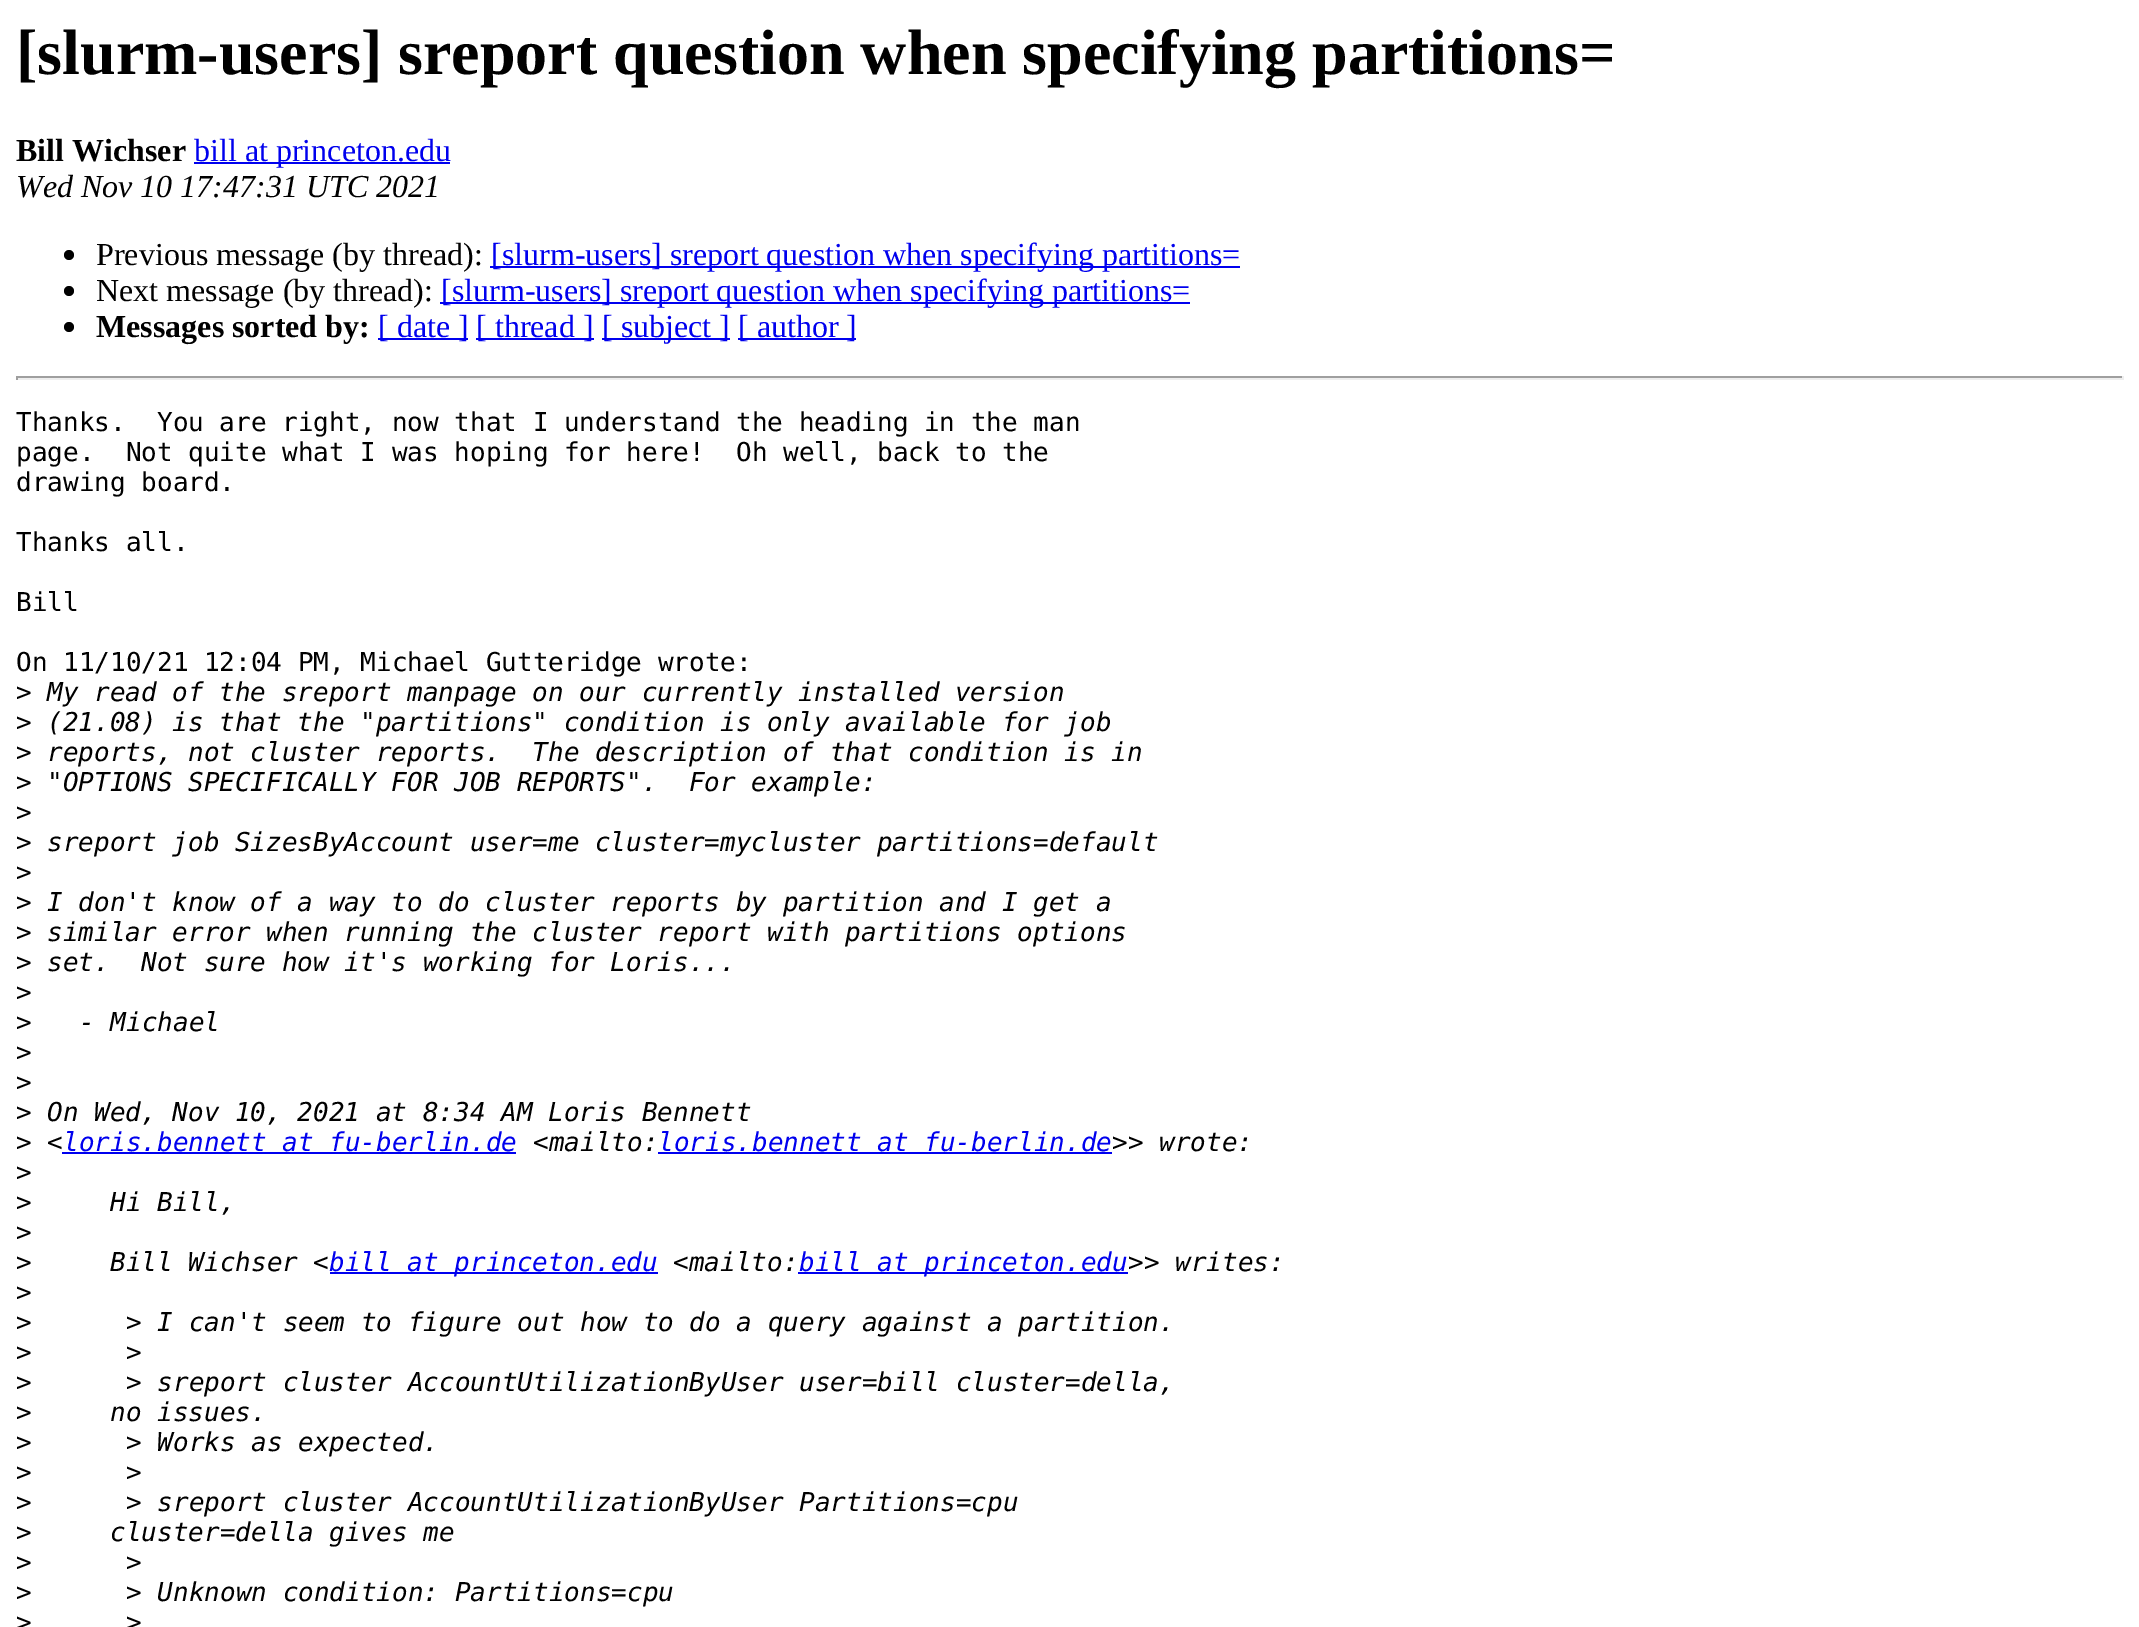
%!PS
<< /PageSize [2139 1627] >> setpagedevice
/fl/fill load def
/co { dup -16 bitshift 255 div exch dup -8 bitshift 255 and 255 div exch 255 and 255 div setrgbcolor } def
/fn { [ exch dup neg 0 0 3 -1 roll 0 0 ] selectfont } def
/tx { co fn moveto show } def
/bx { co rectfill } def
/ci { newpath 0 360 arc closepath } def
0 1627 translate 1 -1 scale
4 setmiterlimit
0 0 2139 1627 16#FFFFFF bx
194 162 256 2 16#0000EE bx
16#000000 co
69 255 5 ci fl
490 266 750 2 16#0000EE bx
16#000000 co
69 291 5 ci fl
440 302 750 2 16#0000EE bx
16#000000 co
69 327 5 ci fl
378 338 90 2 16#0000EE bx
476 338 118 2 16#0000EE bx
602 338 128 2 16#0000EE bx
738 338 118 2 16#0000EE bx
16 376 2108 2 16#9F9F9F bx
2122 376 2 4 16#EEEEEE bx
16 378 2108 2 16#EEEEEE bx
16 376 2 4 16#9F9F9F bx
62 1152 454 2 16#0000EE bx
658 1152 454 2 16#0000EE bx
330 1272 328 2 16#0000EE bx
798 1272 330 2 16#0000EE bx
([slurm-users] sreport question when specifying partitions=) 16 74 /LiberationSerif-Bold 64 16#000000 tx
(Bill Wichser) 16 161 /LiberationSerif-Bold 32 16#000000 tx
(bill at princeton.edu) 194 161 /LiberationSerif-Regular 32 16#0000EE tx
(Wed Nov 10 17:47:31 UTC 2021) 16 197 /LiberationSerif-Italic 32 16#000000 tx
(Previous message \(by thread\):) 96 265 /LiberationSerif-Regular 32 16#000000 tx
([slurm-users] sreport question when specifying partitions=) 491 265 /LiberationSerif-Regular 32 16#0000EE tx
(Next message \(by thread\):) 96 301 /LiberationSerif-Regular 32 16#000000 tx
([slurm-users] sreport question when specifying partitions=) 441 301 /LiberationSerif-Regular 32 16#0000EE tx
(Messages sorted by:) 96 337 /LiberationSerif-Bold 32 16#000000 tx
([ date ]) 378 337 /LiberationSerif-Regular 32 16#0000EE tx
([ thread ]) 476 337 /LiberationSerif-Regular 32 16#0000EE tx
([ subject ]) 602 337 /LiberationSerif-Regular 32 16#0000EE tx
([ author ]) 738 337 /LiberationSerif-Regular 32 16#0000EE tx
(Thanks.  You are right, now that I understand the heading in the man) 16 431 /DejaVuSansMono-Regular 26 16#000000 tx
(page.  Not quite what I was hoping for here!  Oh well, back to the) 16 461 /DejaVuSansMono-Regular 26 16#000000 tx
(drawing board.) 16 491 /DejaVuSansMono-Regular 26 16#000000 tx
(Thanks all.) 16 551 /DejaVuSansMono-Regular 26 16#000000 tx
(Bill) 16 611 /DejaVuSansMono-Regular 26 16#000000 tx
(On 11/10/21 12:04 PM, Michael Gutteridge wrote:) 16 671 /DejaVuSansMono-Regular 26 16#000000 tx
(>) 16 701 /DejaVuSansMono-Regular 26 16#000000 tx
(My read of the sreport manpage on our currently installed version) 47 701 /DejaVuSansMono-Italic 26 16#000000 tx
(>) 16 731 /DejaVuSansMono-Regular 26 16#000000 tx
(\(21.08\) is that the "partitions" condition is only available for job) 47 731 /DejaVuSansMono-Italic 26 16#000000 tx
(>) 16 761 /DejaVuSansMono-Regular 26 16#000000 tx
(reports, not cluster reports.  The description of that condition is in) 47 761 /DejaVuSansMono-Italic 26 16#000000 tx
(>) 16 791 /DejaVuSansMono-Regular 26 16#000000 tx
("OPTIONS SPECIFICALLY FOR JOB REPORTS".  For example:) 47 791 /DejaVuSansMono-Italic 26 16#000000 tx
(>) 16 821 /DejaVuSansMono-Regular 26 16#000000 tx
(>) 16 851 /DejaVuSansMono-Regular 26 16#000000 tx
(sreport job SizesByAccount user=me cluster=mycluster partitions=default) 47 851 /DejaVuSansMono-Italic 26 16#000000 tx
(>) 16 881 /DejaVuSansMono-Regular 26 16#000000 tx
(>) 16 911 /DejaVuSansMono-Regular 26 16#000000 tx
(I don't know of a way to do cluster reports by partition and I get a) 47 911 /DejaVuSansMono-Italic 26 16#000000 tx
(>) 16 941 /DejaVuSansMono-Regular 26 16#000000 tx
(similar error when running the cluster report with partitions options) 47 941 /DejaVuSansMono-Italic 26 16#000000 tx
(>) 16 971 /DejaVuSansMono-Regular 26 16#000000 tx
(set.  Not sure how it's working for Loris...) 47 971 /DejaVuSansMono-Italic 26 16#000000 tx
(>) 16 1001 /DejaVuSansMono-Regular 26 16#000000 tx
(>) 16 1031 /DejaVuSansMono-Regular 26 16#000000 tx
(- Michael) 79 1031 /DejaVuSansMono-Italic 26 16#000000 tx
(>) 16 1061 /DejaVuSansMono-Regular 26 16#000000 tx
(>) 16 1091 /DejaVuSansMono-Regular 26 16#000000 tx
(>) 16 1121 /DejaVuSansMono-Regular 26 16#000000 tx
(On Wed, Nov 10, 2021 at 8:34 AM Loris Bennett) 47 1121 /DejaVuSansMono-Italic 26 16#000000 tx
(>) 16 1151 /DejaVuSansMono-Regular 26 16#000000 tx
(<) 47 1151 /DejaVuSansMono-Italic 26 16#000000 tx
(loris.bennett at fu-berlin.de) 63 1151 /DejaVuSansMono-Italic 26 16#0000EE tx
(<mailto:) 533 1151 /DejaVuSansMono-Italic 26 16#000000 tx
(loris.bennett at fu-berlin.de) 658 1151 /DejaVuSansMono-Italic 26 16#0000EE tx
(>> wrote:) 1112 1151 /DejaVuSansMono-Italic 26 16#000000 tx
(>) 16 1181 /DejaVuSansMono-Regular 26 16#000000 tx
(>) 16 1211 /DejaVuSansMono-Regular 26 16#000000 tx
(Hi Bill,) 110 1211 /DejaVuSansMono-Italic 26 16#000000 tx
(>) 16 1241 /DejaVuSansMono-Regular 26 16#000000 tx
(>) 16 1271 /DejaVuSansMono-Regular 26 16#000000 tx
(Bill Wichser <) 110 1271 /DejaVuSansMono-Italic 26 16#000000 tx
(bill at princeton.edu) 329 1271 /DejaVuSansMono-Italic 26 16#0000EE tx
(<mailto:) 673 1271 /DejaVuSansMono-Italic 26 16#000000 tx
(bill at princeton.edu) 799 1271 /DejaVuSansMono-Italic 26 16#0000EE tx
(>> writes:) 1128 1271 /DejaVuSansMono-Italic 26 16#000000 tx
(>) 16 1301 /DejaVuSansMono-Regular 26 16#000000 tx
(>) 16 1331 /DejaVuSansMono-Regular 26 16#000000 tx
(> I can't seem to figure out how to do a query against a partition.) 126 1331 /DejaVuSansMono-Italic 26 16#000000 tx
(>) 16 1361 /DejaVuSansMono-Regular 26 16#000000 tx
(>) 126 1361 /DejaVuSansMono-Italic 26 16#000000 tx
(>) 16 1391 /DejaVuSansMono-Regular 26 16#000000 tx
(> sreport cluster AccountUtilizationByUser user=bill cluster=della,) 126 1391 /DejaVuSansMono-Italic 26 16#000000 tx
(>) 16 1421 /DejaVuSansMono-Regular 26 16#000000 tx
(no issues.) 110 1421 /DejaVuSansMono-Italic 26 16#000000 tx
(>) 16 1451 /DejaVuSansMono-Regular 26 16#000000 tx
(> Works as expected.) 126 1451 /DejaVuSansMono-Italic 26 16#000000 tx
(>) 16 1481 /DejaVuSansMono-Regular 26 16#000000 tx
(>) 126 1481 /DejaVuSansMono-Italic 26 16#000000 tx
(>) 16 1511 /DejaVuSansMono-Regular 26 16#000000 tx
(> sreport cluster AccountUtilizationByUser Partitions=cpu) 126 1511 /DejaVuSansMono-Italic 26 16#000000 tx
(>) 16 1541 /DejaVuSansMono-Regular 26 16#000000 tx
(cluster=della gives me) 110 1541 /DejaVuSansMono-Italic 26 16#000000 tx
(>) 16 1571 /DejaVuSansMono-Regular 26 16#000000 tx
(>) 126 1571 /DejaVuSansMono-Italic 26 16#000000 tx
(>) 16 1601 /DejaVuSansMono-Regular 26 16#000000 tx
(> Unknown condition: Partitions=cpu) 126 1601 /DejaVuSansMono-Italic 26 16#000000 tx
(>) 16 1631 /DejaVuSansMono-Regular 26 16#000000 tx
(>) 126 1631 /DejaVuSansMono-Italic 26 16#000000 tx
showpage
